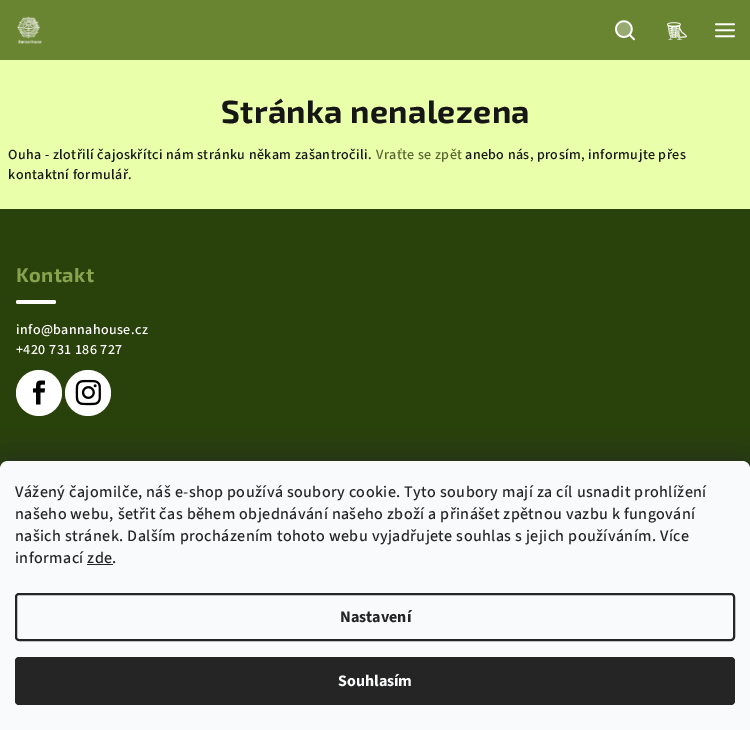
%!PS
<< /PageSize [750 730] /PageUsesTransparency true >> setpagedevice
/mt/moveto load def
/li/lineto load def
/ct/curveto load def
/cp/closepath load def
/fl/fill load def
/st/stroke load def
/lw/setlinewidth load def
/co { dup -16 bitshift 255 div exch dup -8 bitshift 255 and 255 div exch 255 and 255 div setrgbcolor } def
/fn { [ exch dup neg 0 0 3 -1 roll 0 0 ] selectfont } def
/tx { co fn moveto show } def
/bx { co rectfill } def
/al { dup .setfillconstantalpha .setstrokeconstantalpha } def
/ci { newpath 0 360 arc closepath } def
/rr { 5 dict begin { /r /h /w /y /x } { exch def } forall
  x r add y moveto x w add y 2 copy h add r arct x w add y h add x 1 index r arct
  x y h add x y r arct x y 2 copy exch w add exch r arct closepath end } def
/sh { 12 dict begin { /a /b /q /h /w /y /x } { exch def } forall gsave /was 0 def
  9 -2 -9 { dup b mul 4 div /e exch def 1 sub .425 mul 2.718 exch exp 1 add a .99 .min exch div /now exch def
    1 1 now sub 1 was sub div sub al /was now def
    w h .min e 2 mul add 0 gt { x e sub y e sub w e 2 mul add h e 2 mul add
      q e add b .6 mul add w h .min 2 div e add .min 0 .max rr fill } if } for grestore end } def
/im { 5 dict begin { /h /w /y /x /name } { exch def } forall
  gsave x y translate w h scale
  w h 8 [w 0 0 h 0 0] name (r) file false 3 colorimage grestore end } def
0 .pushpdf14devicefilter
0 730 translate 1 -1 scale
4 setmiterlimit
0 0 750 730 16#E9FFAA bx
0 0 750 60 16#6A8532 bx
(media/1.raw) 17 16 25 28 im
(media/2.raw) 615 20 20 21 im
0.3 al
16#FFFFFF co
624 37 mt 634 37 634 21 624 21 ct 613.5 21 613.5 37 624 37 ct cp fl
1 al
(media/3.raw) 667 22 20 16 im
(media/4.raw) 715 23 20 15 im
0 209 750 260 16#29410B bx
16#FFFFFF co
16 300 40 4 2 rr fl
39 393 23 ci fl
(media/5.raw) 32 380 13 25 im
88 393 23 ci fl
(media/6.raw) 75 379 26 27 im
16#1B1939 co
0 461 750 269 8 15 .5 sh
16#F8FAFB co
8 461 mt 742 461 li 746.5 461 750 464.5 750 469 ct 750 730 li 0 730 li 0 469 li 0 464.5 3.5 461 8 461 ct cp fl
87 564 26 1 16#252525 bx
2 lw
16 594 718 46 3 rr st
15 657 720 48 4 rr fl
/LiberationSerif-Regular 20 fn
16#D0D9BE co
668 40 mt .4 0 (A) ashow
/Exo2-Bold 32 fn
16#161616 co
221 123 mt .4 0 (Stránka nenalezena) ashow
/SourceSans3-Medium 14 fn
8 159 mt .4 0 (Ouha - zlotřilí čajoskřítci nám stránku někam zašantročili.) ashow
16#54672E co
376 159 mt .4 0 (Vraťte se zpět) ashow
16#161616 co
465 159 mt .4 0 (anebo nás, prosím, informujte přes) ashow
8 179 mt .4 0 (kontaktní formulář.) ashow
/Exo2-Bold 20 fn
16#87A34D co
16 282 mt .4 0 (Kontakt) ashow
/SourceSans3-Medium 14 fn
16#FFFFFF co
16 334 mt .4 0 (info@bannahouse.cz) ashow
16 354 mt .4 0 (+420 731 186 727) ashow
/SourceSans3-Medium 16 fn
16#252525 co
15 497 mt .4 0 (Vážený čajomilče, náš e-shop používá soubory cookie. Tyto soubory mají za cíl usnadit prohlížení) ashow
15 519 mt .4 0 (našeho webu, šetřit čas během objednávání našeho zboží a přinášet zpětnou vazbu k fungování) ashow
15 541 mt .4 0 (našich stránek. Dalším procházením tohoto webu vyjadřujete souhlas s jejich používáním. Více) ashow
15 563 mt .4 0 (informací zde.) ashow
(Nastavení) 340 622 /SourceSans3-Bold 16 16#252525 tx
(Souhlasím) 338 686 /SourceSans3-Bold 16 16#F8FAFB tx
.poppdf14devicefilter showpage
